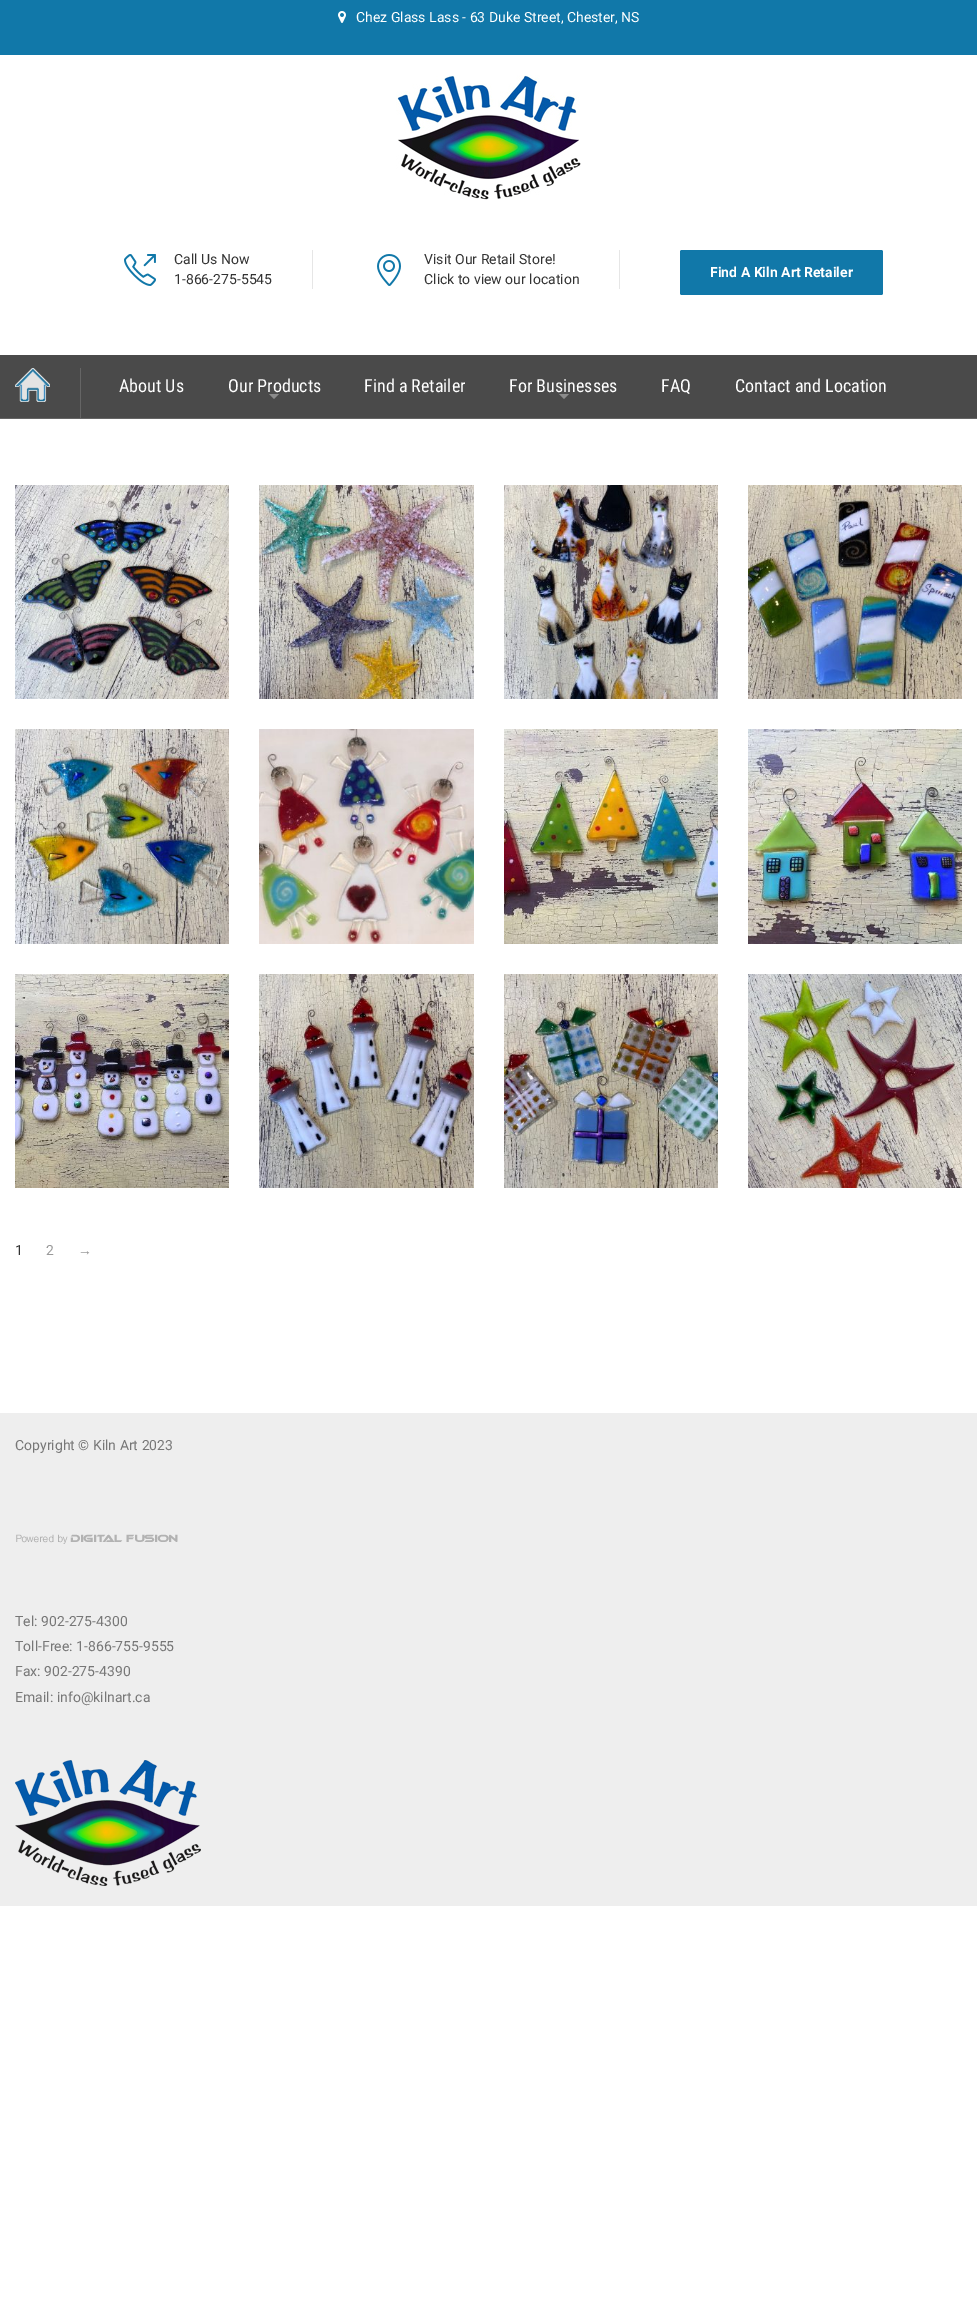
%!PS
<< /PageSize [977 2299] >> setpagedevice
/mt/moveto load def
/li/lineto load def
/cp/closepath load def
/fl/fill load def
/co { dup -16 bitshift 255 div exch dup -8 bitshift 255 and 255 div exch 255 and 255 div setrgbcolor } def
/fn { [ exch dup neg 0 0 3 -1 roll 0 0 ] selectfont } def
/tx { co fn moveto show } def
/bx { co rectfill } def
/rr { 5 dict begin { /r /h /w /y /x } { exch def } forall
  x r add y moveto x w add y 2 copy h add r arct x w add y h add x 1 index r arct
  x y h add x y r arct x y 2 copy exch w add exch r arct closepath end } def
/im { 5 dict begin { /h /w /y /x /name } { exch def } forall
  gsave x y translate w h scale
  w h 8 [w 0 0 h 0 0] name (r) file false 3 colorimage grestore end } def
0 2299 translate 1 -1 scale
4 setmiterlimit
0 0 977 2299 16#FFFFFF bx
0 0 977 55 16#1178A9 bx
(media/1.raw) 338 11 8 12 im
(media/2.raw) 396 75 185 125 im
312 250 1 39 16#E6E6E6 bx
(media/3.raw) 124 254 32 32 im
619 250 1 39 16#E6E6E6 bx
(media/4.raw) 377 254 24 32 im
16#1178A9 co
680 250 203 45 2 rr fl
0 355 977 63 16#4A4A4A bx
0 418 977 1 16#656565 bx
(media/5.raw) 15 368 35 34 im
80 368 1 50 16#656565 bx
16#8B8B8B co
269 394 mt 279 394 li 274 399 li cp fl
559 394 mt 569 394 li 564 399 li cp fl
(media/6.raw) 15 485 214 214 im
(media/7.raw) 259 485 215 214 im
(media/8.raw) 504 485 214 214 im
(media/9.raw) 748 485 214 214 im
(media/10.raw) 15 729 214 215 im
(media/11.raw) 259 729 215 215 im
(media/12.raw) 504 729 214 215 im
(media/13.raw) 748 729 214 215 im
(media/14.raw) 15 974 214 214 im
(media/15.raw) 259 974 215 214 im
(media/16.raw) 504 974 214 214 im
(media/17.raw) 748 974 214 214 im
0 1413 977 493 16#EEEEEE bx
(media/18.raw) 16 1534 162 10 im
(media/19.raw) 15 1760 186 126 im
(Chez Glass Lass - 63 Duke Street, Chester, NS) 356 22 /Roboto-Regular 14 16#FFFFFF tx
(Call Us Now) 174 264 /Roboto-Regular 14 16#333333 tx
(1-866-275-5545) 174 284 /Roboto-Regular 14 16#333333 tx
(Visit Our Retail Store!) 424 264 /Roboto-Regular 14 16#333333 tx
(Click to view our location) 424 284 /Roboto-Regular 14 16#333333 tx
(Find A Kiln Art Retailer) 710 277 /Roboto-Bold 14 16#FFFFFF tx
(About Us) 119 392 /RobotoCondensed-Regular 18 16#FFFFFF tx
(Our Products) 228 392 /RobotoCondensed-Regular 18 16#FFFFFF tx
(Find a Retailer) 364 392 /RobotoCondensed-Regular 18 16#FFFFFF tx
(For Businesses) 509 392 /RobotoCondensed-Regular 18 16#FFFFFF tx
(FAQ) 661 392 /RobotoCondensed-Regular 18 16#FFFFFF tx
(Contact and Location) 735 392 /RobotoCondensed-Regular 18 16#FFFFFF tx
(1) 15 1255 /Roboto-Regular 14 16#333333 tx
(2) 46 1255 /Roboto-Regular 14 16#999999 tx
(→) 78 1255 /LiberationSans-Regular 14 16#999999 tx
(Copyright © Kiln Art 2023) 15 1450 /Roboto-Regular 14 16#777777 tx
(Tel: 902-275-4300) 15 1626 /Roboto-Regular 14 16#777777 tx
(Toll-Free: 1-866-755-9555) 15 1651 /Roboto-Regular 14 16#777777 tx
(Fax: 902-275-4390) 15 1676 /Roboto-Regular 14 16#777777 tx
(Email: info@kilnart.ca) 15 1702 /Roboto-Regular 14 16#777777 tx
showpage
